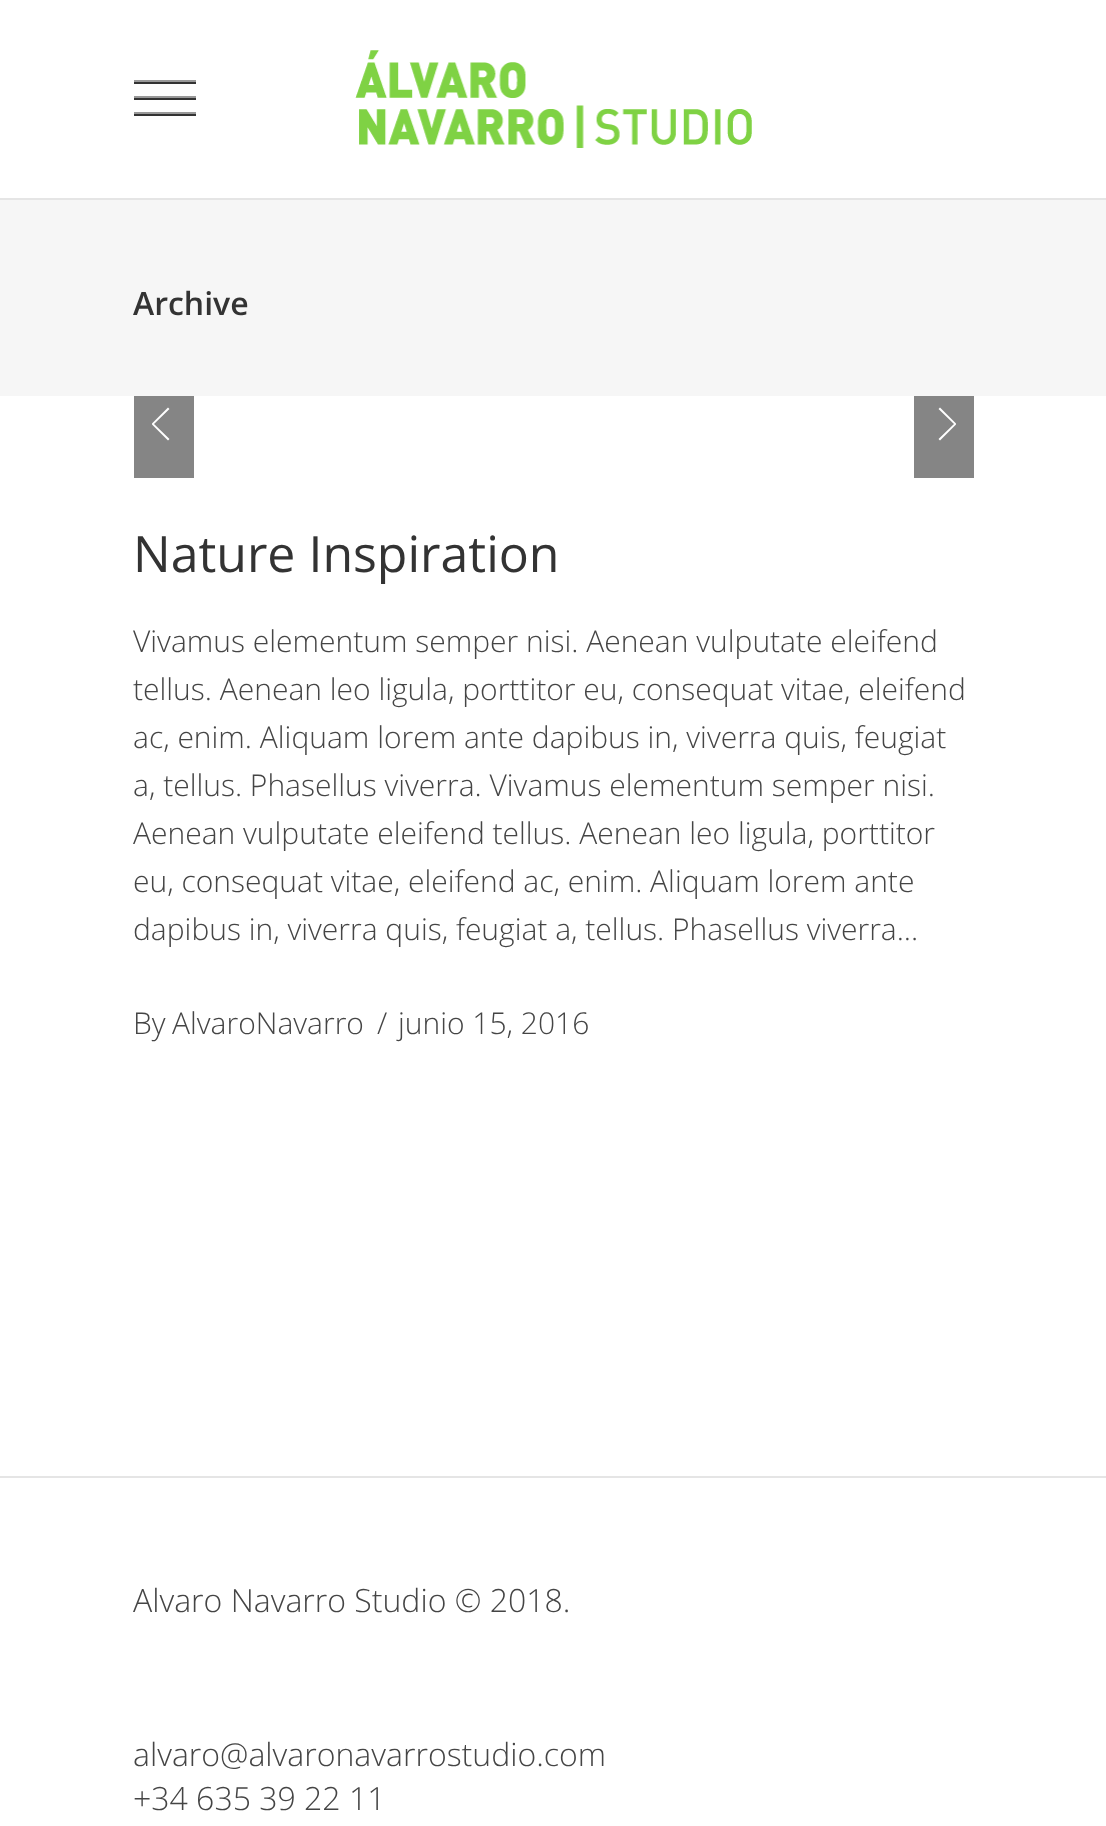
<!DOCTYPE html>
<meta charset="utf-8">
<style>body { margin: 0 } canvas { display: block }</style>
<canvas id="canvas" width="1106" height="1826"></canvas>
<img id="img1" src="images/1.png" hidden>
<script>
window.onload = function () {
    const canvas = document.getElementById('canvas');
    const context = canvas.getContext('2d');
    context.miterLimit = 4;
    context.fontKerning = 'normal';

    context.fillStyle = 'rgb(255, 255, 255)';
    context.fillRect(0, 0, 1106, 1826);
    context.fillStyle = 'rgb(229, 229, 229)';
    context.fillRect(0, 198, 1106, 2);
    context.fillStyle = 'rgb(51, 51, 51)';
    context.fillRect(134, 82, 62, 2);
    context.fillStyle = 'rgb(153, 153, 153)';
    context.fillRect(134, 80, 62, 2);
    context.fillStyle = 'rgb(51, 51, 51)';
    context.fillRect(134, 98, 62, 2);
    context.fillStyle = 'rgb(153, 153, 153)';
    context.fillRect(134, 96, 62, 2);
    context.fillStyle = 'rgb(51, 51, 51)';
    context.fillRect(134, 114, 62, 2);
    context.fillStyle = 'rgb(153, 153, 153)';
    context.fillRect(134, 112, 62, 2);
    context.drawImage(document.getElementById('img1'), 355, 50, 397, 98);
    context.fillStyle = 'rgb(246, 246, 246)';
    context.fillRect(0, 200, 1106, 196);
    context.fillStyle = 'rgb(133, 133, 133)';
    context.fillRect(134, 396, 60, 82);
    context.fillStyle = 'rgb(255, 255, 255)';
    context.beginPath();
    context.moveTo(168, 407.5);
    context.lineTo(169.5, 409);
    context.lineTo(154, 424);
    context.lineTo(169.5, 439);
    context.lineTo(168, 440.5);
    context.lineTo(152, 424.5);
    context.lineTo(152, 423.5);
    context.closePath();
    context.fill();
    context.fillStyle = 'rgb(133, 133, 133)';
    context.fillRect(914, 396, 60, 82);
    context.fillStyle = 'rgb(255, 255, 255)';
    context.beginPath();
    context.moveTo(956, 423.5);
    context.lineTo(956, 424.5);
    context.lineTo(940, 440.5);
    context.lineTo(938.5, 439);
    context.lineTo(954, 424);
    context.lineTo(938.5, 409);
    context.lineTo(940, 407.5);
    context.closePath();
    context.fill();
    context.fillStyle = 'rgb(229, 229, 229)';
    context.fillRect(0, 1476, 1106, 2);
    context.font = '600 32px Open Sans';
    context.fillStyle = 'rgb(51, 51, 51)';
    context.fillText('Archive', 133, 315);
    context.font = '50px Open Sans';
    context.fillText('Nature Inspiration', 133, 572);
    context.font = '300 30px Open Sans';
    context.fillStyle = 'rgb(69, 69, 69)';
    context.fillText('Vivamus elementum semper nisi. Aenean vulputate eleifend', 133, 652);
    context.fillText('tellus. Aenean leo ligula, porttitor eu, consequat vitae, eleifend', 133, 700);
    context.fillText('ac, enim. Aliquam lorem ante dapibus in, viverra quis, feugiat', 133, 748);
    context.fillText('a, tellus. Phasellus viverra. Vivamus elementum semper nisi.', 133, 796);
    context.fillText('Aenean vulputate eleifend tellus. Aenean leo ligula, porttitor', 133, 844);
    context.fillText('eu, consequat vitae, eleifend ac, enim. Aliquam lorem ante', 133, 892);
    context.fillText('dapibus in, viverra quis, feugiat a, tellus. Phasellus viverra...', 133, 940);
    context.fillText('By', 133, 1034);
    context.fillText('AlvaroNavarro', 172, 1034);
    context.fillText('/', 377, 1034);
    context.fillText('junio 15, 2016', 398, 1034);
    context.font = '300 32px Open Sans';
    context.fillText('Alvaro Navarro Studio © 2018.', 133, 1612);
    context.fillText('alvaro@alvaronavarrostudio.com', 133, 1766);
    context.fillText('+34 635 39 22 11', 133, 1810);
};
</script>
